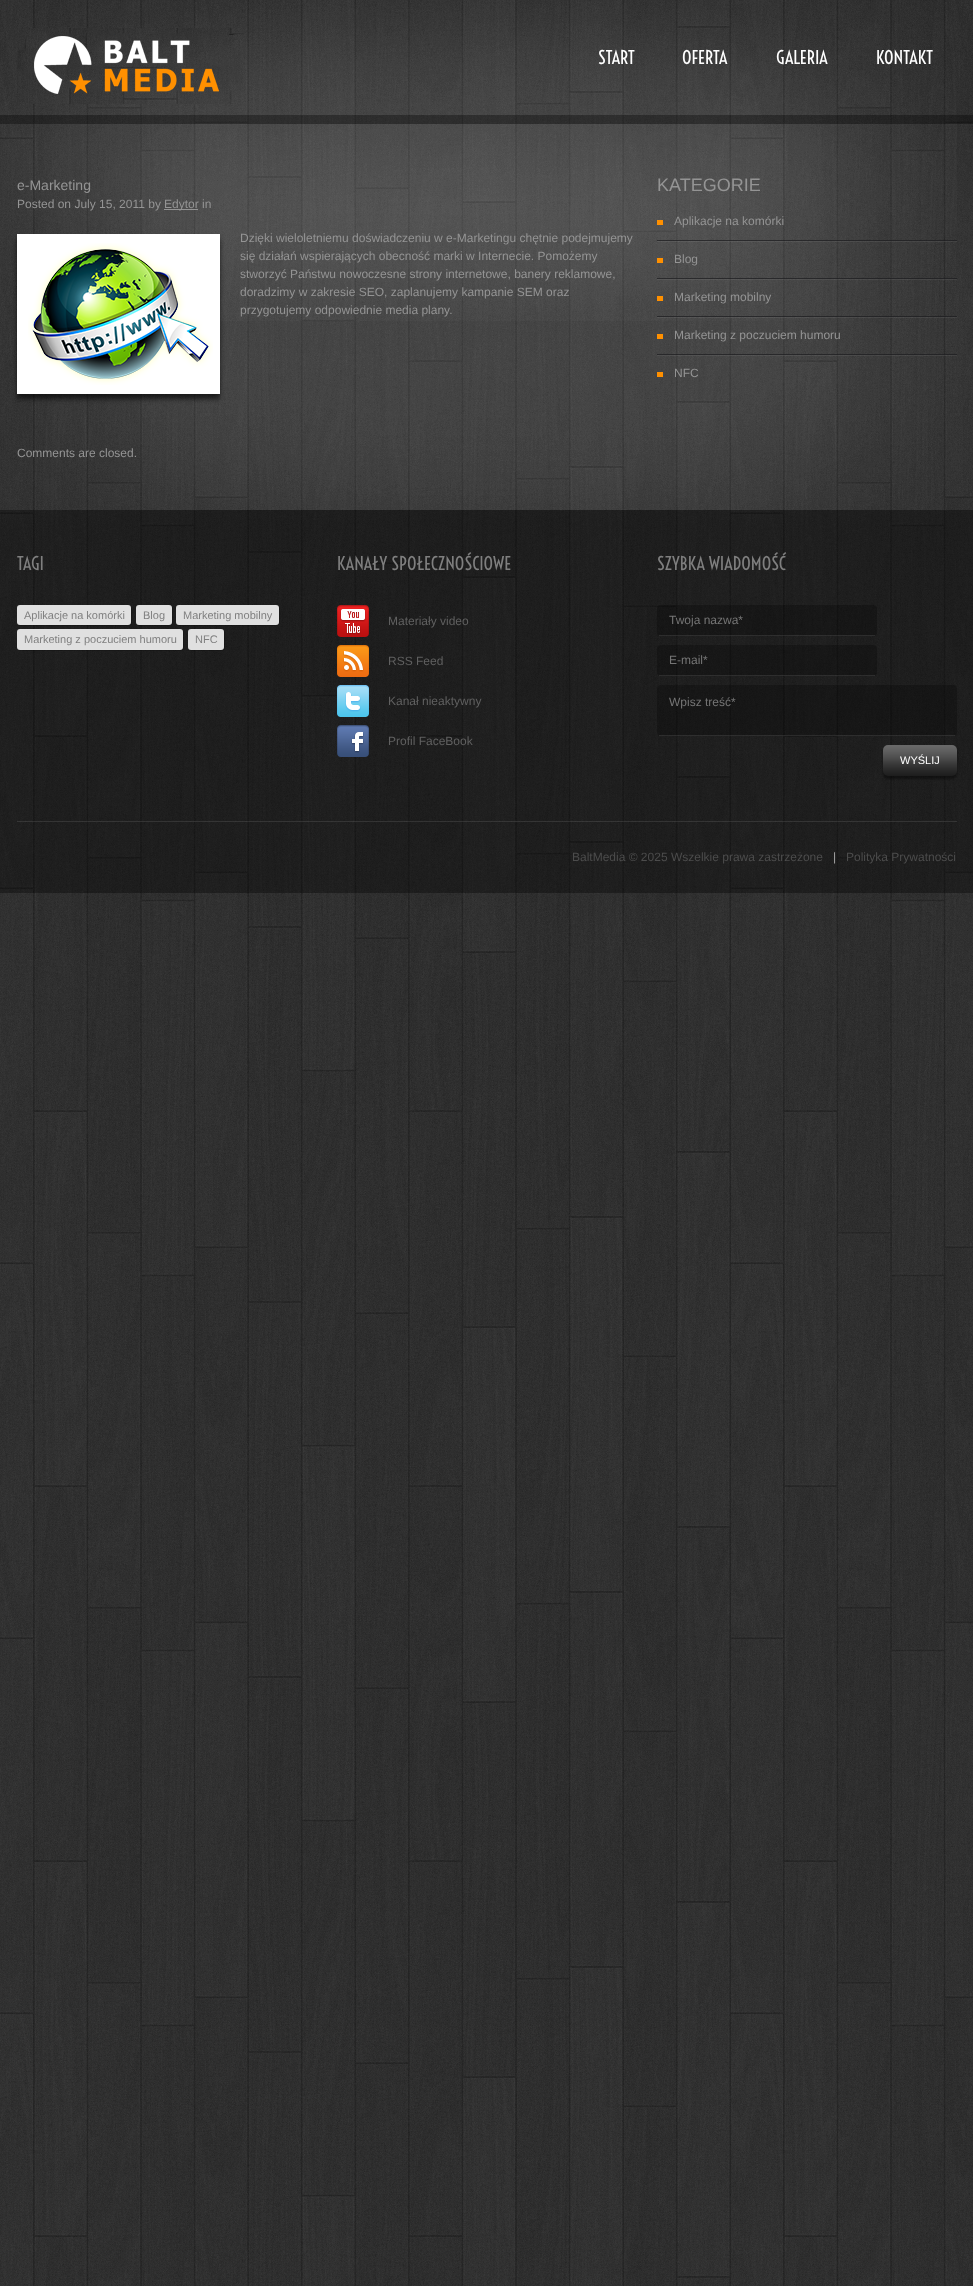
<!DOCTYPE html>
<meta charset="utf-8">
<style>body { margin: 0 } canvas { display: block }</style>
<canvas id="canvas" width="973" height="2286"></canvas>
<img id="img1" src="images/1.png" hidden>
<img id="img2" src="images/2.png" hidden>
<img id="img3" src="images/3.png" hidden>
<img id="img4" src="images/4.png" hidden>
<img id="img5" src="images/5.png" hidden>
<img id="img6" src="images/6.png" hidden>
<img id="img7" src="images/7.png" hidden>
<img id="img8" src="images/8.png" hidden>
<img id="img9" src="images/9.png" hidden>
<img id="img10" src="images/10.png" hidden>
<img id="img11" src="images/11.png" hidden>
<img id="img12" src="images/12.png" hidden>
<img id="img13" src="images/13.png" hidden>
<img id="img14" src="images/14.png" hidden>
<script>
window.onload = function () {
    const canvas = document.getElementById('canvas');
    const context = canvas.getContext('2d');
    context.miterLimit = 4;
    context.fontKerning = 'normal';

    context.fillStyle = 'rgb(255, 255, 255)';
    context.fillRect(0, 0, 973, 2286);
    context.drawImage(document.getElementById('img1'), 0, 0, 973, 2286);
    context.drawImage(document.getElementById('img2'), 0, 0, 957, 321);
    context.fillStyle = 'rgba(0, 0, 0, 0.33)';
    context.fillRect(0, 115, 973, 9);
    context.drawImage(document.getElementById('img3'), 17, 28, 226, 76);
    context.drawImage(document.getElementById('img4'), 0, 124, 973, 386);
    context.fillStyle = 'rgb(148, 148, 148)';
    context.fillRect(164, 209, 34, 1);
    context.fillStyle = 'rgba(0, 0, 0, 0.6)';
    context.filter = 'blur(2.5px)';
    context.beginPath();
    context.rect(17, 239, 203, 160);
    context.fill();
    context.filter = 'none';
    context.fillStyle = 'rgb(255, 255, 255)';
    context.fillRect(17, 234, 203, 160);
    context.drawImage(document.getElementById('img5'), 28, 243, 185, 142);
    context.fillStyle = 'rgb(255, 144, 0)';
    context.fillRect(657, 220, 6, 5);
    context.drawImage(document.getElementById('img6'), 657, 240, 300, 2);
    context.fillRect(657, 258, 6, 5);
    context.drawImage(document.getElementById('img7'), 657, 278, 300, 2);
    context.fillRect(657, 296, 6, 5);
    context.drawImage(document.getElementById('img8'), 657, 316, 300, 2);
    context.fillRect(657, 334, 6, 5);
    context.drawImage(document.getElementById('img9'), 657, 354, 300, 2);
    context.fillRect(657, 372, 6, 5);
    context.fillStyle = 'rgba(0, 0, 0, 0.35)';
    context.fillRect(0, 510, 973, 383);
    context.fillStyle = 'rgba(0, 0, 0, 0.2)';
    context.beginPath();
    context.moveTo(18, 625);
    context.lineTo(21, 626);
    context.lineTo(129, 626);
    context.bezierCurveTo(132, 626, 132, 623, 132, 621);
    context.bezierCurveTo(132, 618, 133, 608, 131, 606);
    context.lineTo(131, 608);
    context.lineTo(131, 622);
    context.bezierCurveTo(131, 624, 130, 625, 128, 625);
    context.lineTo(20, 625);
    context.closePath();
    context.fill();
    context.fillStyle = 'rgb(224, 224, 224)';
    context.beginPath();
    context.roundRect(17, 605, 114, 20, 3);
    context.fill();
    context.fillStyle = 'rgba(0, 0, 0, 0.2)';
    context.beginPath();
    context.moveTo(137.5, 624.5);
    context.bezierCurveTo(138, 625.5, 139, 626, 140, 626);
    context.lineTo(170, 626);
    context.bezierCurveTo(171.5, 626, 173, 624.5, 173, 623);
    context.lineTo(173, 609);
    context.bezierCurveTo(173, 608, 172.5, 607, 171.5, 606.5);
    context.lineTo(172, 608);
    context.lineTo(172, 622);
    context.bezierCurveTo(172, 623.5, 170.5, 625, 169, 625);
    context.lineTo(139, 625);
    context.closePath();
    context.fill();
    context.fillStyle = 'rgb(224, 224, 224)';
    context.beginPath();
    context.roundRect(136, 605, 36, 20, 3);
    context.fill();
    context.fillStyle = 'rgba(0, 0, 0, 0.2)';
    context.beginPath();
    context.moveTo(177, 625);
    context.lineTo(179, 626);
    context.lineTo(277, 626);
    context.bezierCurveTo(280, 626, 280, 623, 280, 621);
    context.bezierCurveTo(280, 618, 281, 608, 279, 606);
    context.lineTo(279, 608);
    context.lineTo(279, 622);
    context.bezierCurveTo(279, 624, 278, 625, 276, 625);
    context.lineTo(179, 625);
    context.closePath();
    context.fill();
    context.fillStyle = 'rgb(224, 224, 224)';
    context.beginPath();
    context.roundRect(176, 605, 103, 20, 3);
    context.fill();
    context.fillStyle = 'rgba(0, 0, 0, 0.2)';
    context.beginPath();
    context.moveTo(18, 650);
    context.bezierCurveTo(19, 650, 20, 651, 21, 651);
    context.lineTo(181, 651);
    context.bezierCurveTo(183, 651, 184, 650, 184, 648);
    context.lineTo(184, 633);
    context.bezierCurveTo(184, 632, 183, 631, 183, 630);
    context.lineTo(183, 632);
    context.lineTo(183, 647);
    context.bezierCurveTo(183, 649, 182, 650, 180, 650);
    context.lineTo(20, 650);
    context.closePath();
    context.fill();
    context.fillStyle = 'rgb(224, 224, 224)';
    context.beginPath();
    context.roundRect(17, 629, 166, 21, 3);
    context.fill();
    context.fillStyle = 'rgba(0, 0, 0, 0.2)';
    context.beginPath();
    context.moveTo(189.5, 649.5);
    context.bezierCurveTo(190, 650.5, 191, 651, 192, 651);
    context.lineTo(222, 651);
    context.bezierCurveTo(223.5, 651, 225, 649.5, 225, 648);
    context.lineTo(225, 633);
    context.bezierCurveTo(225, 632, 224.5, 631, 223.5, 630.5);
    context.lineTo(224, 632);
    context.lineTo(224, 647);
    context.bezierCurveTo(224, 648.5, 222.5, 650, 221, 650);
    context.lineTo(191, 650);
    context.closePath();
    context.fill();
    context.fillStyle = 'rgb(224, 224, 224)';
    context.beginPath();
    context.roundRect(188, 629, 36, 21, 3);
    context.fill();
    context.drawImage(document.getElementById('img10'), 337, 605, 32, 32);
    context.drawImage(document.getElementById('img11'), 337, 645, 32, 32);
    context.drawImage(document.getElementById('img12'), 337, 685, 32, 32);
    context.drawImage(document.getElementById('img13'), 337, 725, 32, 32);
    context.fillStyle = 'rgba(0, 0, 0, 0.25)';
    context.beginPath();
    context.roundRect(657, 605, 220, 31, 4);
    context.fill();
    context.fillStyle = 'rgba(255, 255, 255, 0.1)';
    context.fillRect(659, 635, 216, 1);
    context.fillStyle = 'rgba(0, 0, 0, 0.25)';
    context.beginPath();
    context.roundRect(657, 645, 220, 31, 4);
    context.fill();
    context.fillStyle = 'rgba(255, 255, 255, 0.1)';
    context.fillRect(659, 675, 216, 1);
    context.fillStyle = 'rgba(0, 0, 0, 0.25)';
    context.beginPath();
    context.roundRect(657, 685, 300, 51, 4);
    context.fill();
    context.fillStyle = 'rgba(255, 255, 255, 0.1)';
    context.fillRect(659, 735, 296, 1);
    context.fillStyle = 'rgba(0, 0, 0, 0.4)';
    context.filter = 'blur(1px)';
    context.beginPath();
    context.roundRect(883, 748, 74, 31, 5);
    context.fill();
    context.filter = 'none';
    context.drawImage(document.getElementById('img14'), 883, 745, 74, 31);
    context.fillStyle = 'rgba(255, 255, 255, 0.1)';
    context.fillRect(17, 821, 940, 1);
    context.font = '18px Voltaire';
    context.fillStyle = 'rgb(255, 255, 255)';
    context.fillText('START', 598, 64);
    context.fillText('OFERTA', 682, 64);
    context.fillText('GALERIA', 776, 64);
    context.fillText('KONTAKT', 876, 64);
    context.font = '14px Liberation Sans';
    context.fillStyle = 'rgb(148, 148, 148)';
    context.fillText('e-Marketing', 17, 190);
    context.font = '12px Liberation Sans';
    context.fillText('Posted on July 15, 2011 by', 17, 208);
    context.fillText('Edytor in', 164, 208);
    context.fillText('Dzięki wieloletniemu doświadczeniu w e-Marketingu chętnie podejmujemy', 240, 242);
    context.fillText('się działań wspierających obecność marki w Internecie. Pomożemy', 240, 260);
    context.fillText('stworzyć Państwu nowoczesne strony internetowe, banery reklamowe,', 240, 278);
    context.fillText('doradzimy w zakresie SEO, zaplanujemy kampanie SEM oraz', 240, 296);
    context.fillText('przygotujemy odpowiednie media plany.', 240, 314);
    context.fillText('Comments are closed.', 17, 457);
    context.font = '18px Liberation Sans';
    context.fillText('KATEGORIE', 657, 191);
    context.font = '12px Liberation Sans';
    context.fillText('Aplikacje na komórki', 674, 225);
    context.fillText('Blog', 674, 263);
    context.fillText('Marketing mobilny', 674, 301);
    context.fillText('Marketing z poczuciem humoru', 674, 339);
    context.fillText('NFC', 674, 377);
    context.font = '18px Voltaire';
    context.fillStyle = 'rgb(127, 127, 127)';
    context.fillText('TAGI', 17, 570);
    context.font = '11px Liberation Sans';
    context.fillText('Aplikacje na komórki', 24, 619);
    context.fillText('Blog', 143, 619);
    context.fillText('Marketing mobilny', 183, 619);
    context.fillText('Marketing z poczuciem humoru', 24, 643);
    context.fillText('NFC', 195, 643);
    context.font = '18px Voltaire';
    context.fillText('KANAŁY SPOŁECZNOŚCIOWE', 337, 570);
    context.font = '12px Liberation Sans';
    context.fillStyle = 'rgb(96, 96, 96)';
    context.fillText('Materiały video', 388, 625);
    context.fillText('RSS Feed', 388, 665);
    context.fillText('Kanał nieaktywny', 388, 705);
    context.fillText('Profil FaceBook', 388, 745);
    context.font = '18px Voltaire';
    context.fillStyle = 'rgb(127, 127, 127)';
    context.fillText('SZYBKA WIADOMOŚĆ', 657, 570);
    context.font = '12px Liberation Sans';
    context.fillStyle = 'rgb(117, 117, 117)';
    context.fillText('Twoja nazwa*', 669, 624);
    context.fillText('E-mail*', 669, 664);
    context.fillText('Wpisz treść*', 669, 706);
    context.font = '11px Liberation Sans';
    context.fillStyle = 'rgb(255, 255, 255)';
    context.fillText('WYŚLIJ', 900, 764);
    context.font = '12px Liberation Sans';
    context.fillStyle = 'rgb(76, 76, 76)';
    context.fillText('BaltMedia © 2025 Wszelkie prawa zastrzeżone', 572, 861);
    context.fillStyle = 'rgb(164, 164, 164)';
    context.fillText('|', 833, 861);
    context.fillStyle = 'rgb(76, 76, 76)';
    context.fillText('Polityka Prywatności', 846, 861);
};
</script>
